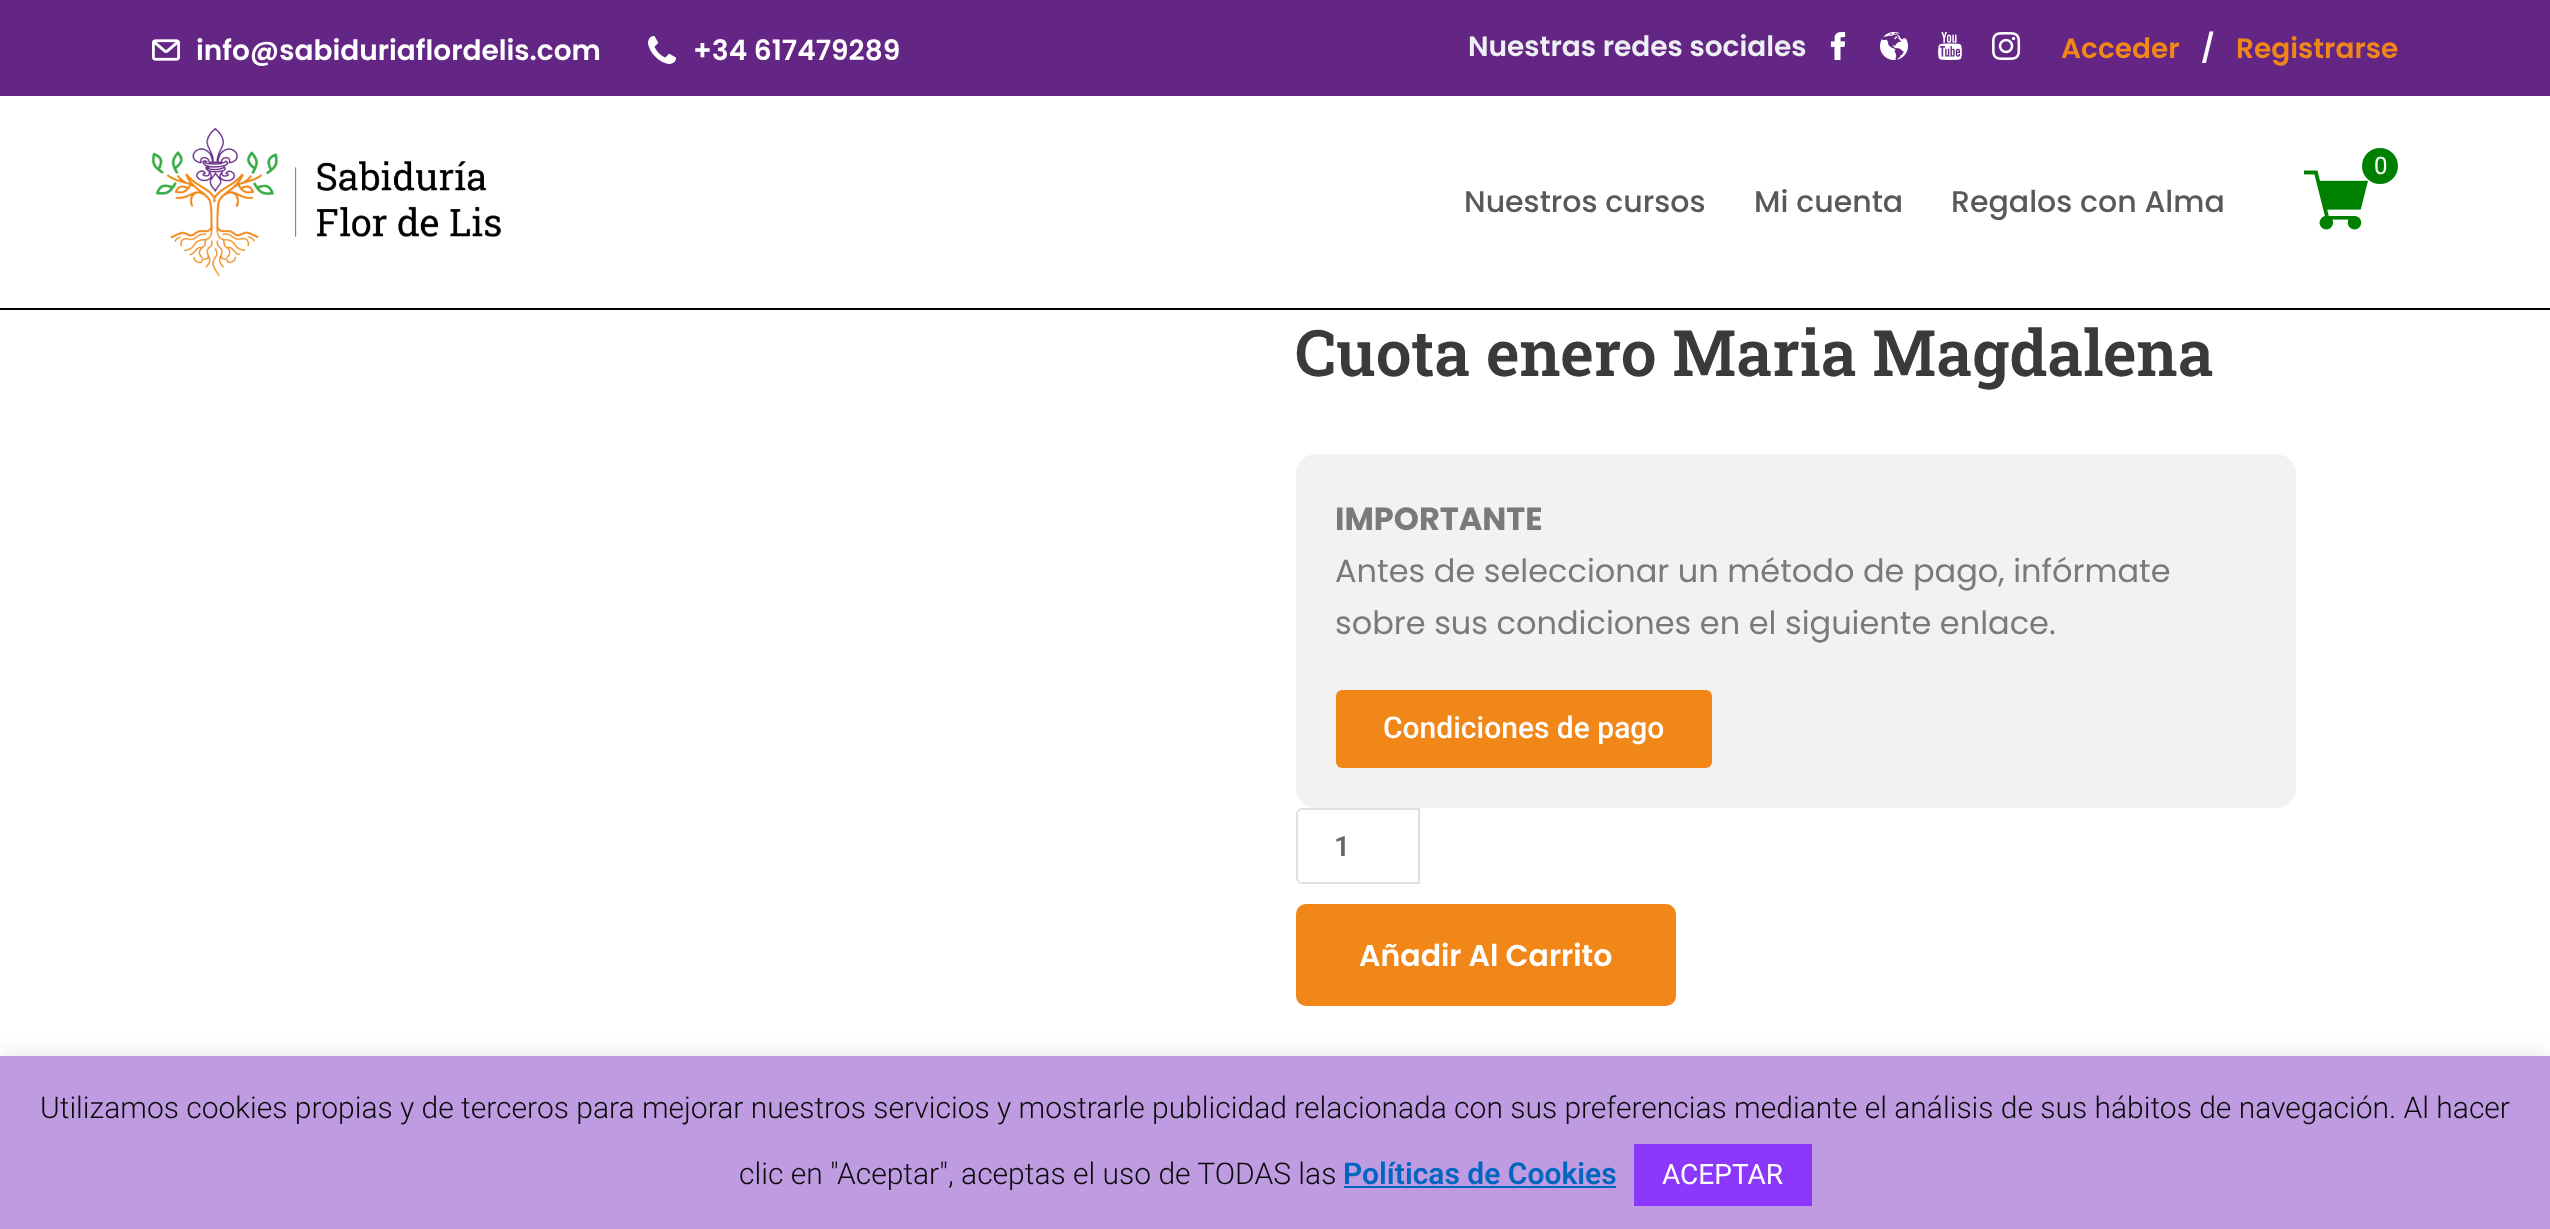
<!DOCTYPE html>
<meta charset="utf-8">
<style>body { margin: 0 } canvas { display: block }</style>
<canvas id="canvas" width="2550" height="1229"></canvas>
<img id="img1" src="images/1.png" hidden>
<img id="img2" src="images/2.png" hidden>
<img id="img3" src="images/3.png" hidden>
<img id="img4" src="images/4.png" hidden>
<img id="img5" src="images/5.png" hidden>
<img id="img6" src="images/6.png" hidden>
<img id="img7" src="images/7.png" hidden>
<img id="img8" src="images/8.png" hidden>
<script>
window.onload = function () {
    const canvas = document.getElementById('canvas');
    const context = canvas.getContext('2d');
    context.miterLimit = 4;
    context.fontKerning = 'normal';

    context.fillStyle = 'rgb(255, 255, 255)';
    context.fillRect(0, 0, 2550, 1229);
    context.fillStyle = 'rgb(0, 0, 0)';
    context.fillRect(0, 308, 2550, 2);
    context.fillStyle = 'rgb(100, 38, 132)';
    context.fillRect(0, 0, 2550, 96);
    context.drawImage(document.getElementById('img1'), 152, 39, 28, 22);
    context.drawImage(document.getElementById('img2'), 648, 36, 28, 28);
    context.drawImage(document.getElementById('img3'), 1830, 32, 16, 28);
    context.drawImage(document.getElementById('img4'), 1880, 32, 28, 28);
    context.drawImage(document.getElementById('img5'), 1938, 32, 24, 28);
    context.drawImage(document.getElementById('img6'), 1992, 32, 29, 28);
    context.drawImage(document.getElementById('img7'), 152, 128, 349, 148);
    context.drawImage(document.getElementById('img8'), 2304, 170, 64, 60);
    context.fillStyle = 'rgb(0, 128, 0)';
    context.beginPath();
    context.arc(2380, 166, 18, 0, 2 * Math.PI);
    context.fill();
    context.fillStyle = 'rgb(242, 242, 242)';
    context.beginPath();
    context.roundRect(1296, 454, 1000, 354, 20);
    context.fill();
    context.fillStyle = 'rgb(241, 135, 25)';
    context.beginPath();
    context.roundRect(1336, 690, 376, 78, 6);
    context.fill();
    context.beginPath();
    context.roundRect(1297, 809, 122, 74, [5, 0, 0, 5]);
    context.strokeStyle = 'rgb(224, 224, 224)';
    context.lineWidth = 2;
    context.stroke();
    context.beginPath();
    context.roundRect(1298, 906, 376, 98, 8);
    context.fill();
    context.strokeStyle = 'rgb(241, 135, 25)';
    context.lineWidth = 4;
    context.stroke();
    context.fillStyle = 'rgba(172, 171, 171, 0.3)';
    context.filter = 'blur(10px)';
    context.beginPath();
    context.rect(0, 1054, 2550, 174);
    context.fill();
    context.filter = 'none';
    context.fillStyle = 'rgb(191, 156, 226)';
    context.fillRect(0, 1056, 2550, 173);
    context.fillStyle = 'rgb(1, 102, 191)';
    context.fillRect(1344, 1186, 272, 2);
    context.fillStyle = 'rgb(140, 55, 252)';
    context.fillRect(1634, 1144, 178, 62);
    context.font = '600 28px Poppins';
    context.fillStyle = 'rgb(255, 255, 255)';
    context.fillText('info@sabiduriaflordelis.com', 196, 60);
    context.fillText('+34 617479289', 693, 60);
    context.fillStyle = 'rgb(237, 240, 242)';
    context.fillText('Nuestras redes sociales', 1468, 56);
    context.fillStyle = 'rgb(241, 135, 25)';
    context.fillText('Acceder', 2061, 58);
    context.fillStyle = 'rgb(255, 255, 255)';
    context.fillText('/', 2201, 58);
    context.fillStyle = 'rgb(241, 135, 25)';
    context.fillText('Registrarse', 2236, 58);
    context.font = '24px Roboto';
    context.fillStyle = 'rgb(255, 255, 255)';
    context.fillText('0', 2374, 174);
    context.font = '500 30px Poppins';
    context.fillStyle = 'rgb(89, 89, 89)';
    context.fillText('Nuestros cursos', 1464, 212);
    context.fillText('Mi cuenta', 1754, 212);
    context.fillText('Regalos con Alma', 1951, 212);
    context.font = '600 64px Roboto Slab';
    context.fillStyle = 'rgb(58, 58, 58)';
    context.fillText('Cuota enero Maria Magdalena', 1295, 376);
    context.font = 'bold 32px Poppins';
    context.fillStyle = 'rgb(122, 122, 122)';
    context.fillText('IMPORTANTE', 1335, 530);
    context.font = '32px Poppins';
    context.fillText('Antes de seleccionar un método de pago, infórmate', 1335, 582);
    context.fillText('sobre sus condiciones en el siguiente enlace.', 1335, 634);
    context.font = '500 30px Roboto';
    context.fillStyle = 'rgb(255, 255, 255)';
    context.fillText('Condiciones de pago', 1383, 738);
    context.font = '600 28px Roboto';
    context.fillStyle = 'rgb(102, 102, 102)';
    context.fillText('1', 1334, 856);
    context.font = '600 30px Poppins';
    context.fillStyle = 'rgb(255, 255, 255)';
    context.fillText('Añadir Al Carrito', 1359, 966);
    context.font = '300 30px Roboto';
    context.fillStyle = 'rgb(10, 10, 10)';
    context.fillText('Utilizamos cookies propias y de terceros para mejorar nuestros servicios y mostrarle publicidad relacionada con sus preferencias mediante el análisis de sus hábitos de navegación. Al hacer', 40, 1118);
    context.fillText('clic en "Aceptar", aceptas el uso de TODAS las', 739, 1184);
    context.font = '600 30px Roboto';
    context.fillStyle = 'rgb(1, 102, 191)';
    context.fillText('Políticas de Cookies', 1343, 1184);
    context.font = '28px Roboto';
    context.fillStyle = 'rgb(255, 255, 255)';
    context.fillText('ACEPTAR', 1662, 1184);
};
</script>
